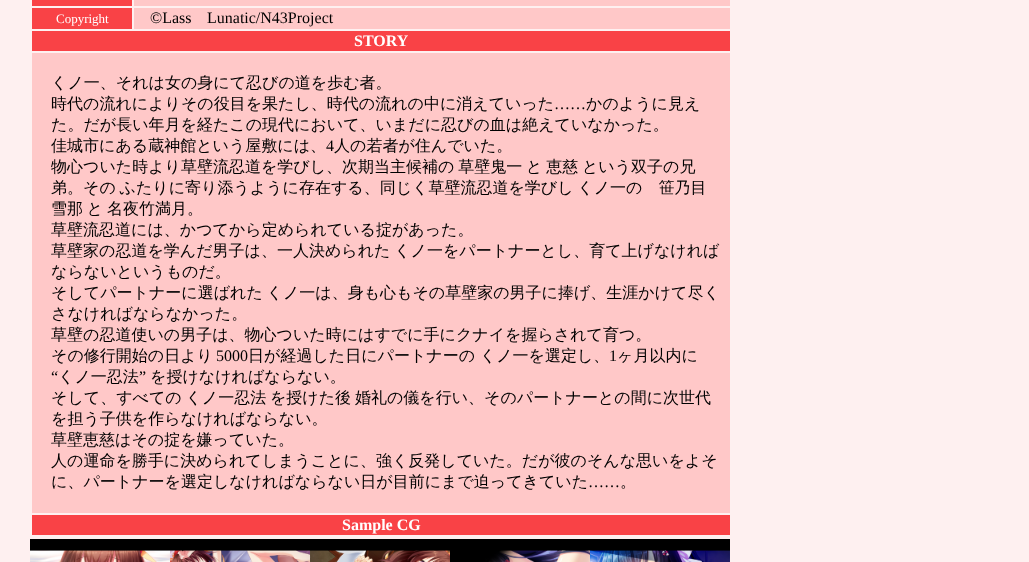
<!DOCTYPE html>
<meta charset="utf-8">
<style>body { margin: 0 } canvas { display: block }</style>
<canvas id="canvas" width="1029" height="562"></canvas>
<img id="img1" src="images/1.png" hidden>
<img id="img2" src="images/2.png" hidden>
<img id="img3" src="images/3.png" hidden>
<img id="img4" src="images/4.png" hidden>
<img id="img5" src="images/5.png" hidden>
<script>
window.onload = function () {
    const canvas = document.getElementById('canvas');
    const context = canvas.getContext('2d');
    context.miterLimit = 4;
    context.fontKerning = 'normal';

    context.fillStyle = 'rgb(254, 240, 240)';
    context.fillRect(0, 0, 1029, 562);
    context.fillStyle = 'rgb(249, 66, 70)';
    context.fillRect(32, 0, 100, 6);
    context.fillStyle = 'rgb(255, 200, 200)';
    context.fillRect(134, 0, 596, 6);
    context.fillStyle = 'rgb(249, 66, 70)';
    context.fillRect(32, 8, 100, 21);
    context.fillStyle = 'rgb(255, 200, 200)';
    context.fillRect(134, 8, 596, 21);
    context.fillStyle = 'rgb(249, 66, 70)';
    context.fillRect(32, 31, 698, 20);
    context.fillStyle = 'rgb(255, 200, 200)';
    context.fillRect(32, 53, 698, 460);
    context.fillStyle = 'rgb(249, 66, 70)';
    context.fillRect(32, 515, 698, 20);
    context.drawImage(document.getElementById('img1'), 30, 539, 140, 23);
    context.drawImage(document.getElementById('img2'), 170, 539, 140, 23);
    context.drawImage(document.getElementById('img3'), 310, 539, 140, 23);
    context.drawImage(document.getElementById('img4'), 450, 539, 140, 23);
    context.drawImage(document.getElementById('img5'), 590, 539, 140, 23);
    context.font = '13px Liberation Serif';
    context.fillStyle = 'rgb(255, 255, 255)';
    context.fillText('Copyright', 56, 23);
    context.font = '16px Liberation Serif';
    context.fillStyle = 'rgb(0, 0, 0)';
    context.fillText('©Lass', 150, 23);
    context.fillText('Lunatic/N43Project', 207, 23);
    context.font = 'bold 16px Liberation Serif';
    context.fillStyle = 'rgb(255, 255, 255)';
    context.fillText('STORY', 354, 46);
    context.font = '500 16px WenQuanYi Zen Hei';
    context.fillStyle = 'rgb(0, 0, 0)';
    context.fillText('くノ一、それは女の身にて忍びの道を歩む者。', 51, 88);
    context.fillText('時代の流れによりその役目を果たし、時代の流れの中に消えていった', 51, 109);
    context.font = '16px Liberation Serif';
    context.fillText('……', 554, 109);
    context.font = '500 16px WenQuanYi Zen Hei';
    context.fillText('かのように見え', 586, 109);
    context.fillText('た。だが長い年月を経たこの現代において、いまだに忍びの血は絶えていなかった。', 51, 130);
    context.fillText('佳城市にある蔵神館という屋敷には、', 51, 151);
    context.font = '16px Liberation Serif';
    context.fillText('4', 326, 151);
    context.font = '500 16px WenQuanYi Zen Hei';
    context.fillText('人の若者が住んでいた。', 334, 151);
    context.wordSpacing = '-1px';
    context.fillText('物心ついた時より草壁流忍道を学びし、次期当主候補の 草壁鬼一 と 恵慈 という双子の兄', 51, 172);
    context.fillText('弟。その ふたりに寄り添うように存在する、同じく草壁流忍道を学びし くノ一の　笹乃目', 51, 193);
    context.fillText('雪那 と 名夜竹満月。', 51, 214);
    context.wordSpacing = '0px';
    context.fillText('草壁流忍道には、かつてから定められている掟があった。', 51, 235);
    context.wordSpacing = '-1px';
    context.fillText('草壁家の忍道を学んだ男子は、一人決められた くノ一をパートナーとし、育て上げなければ', 51, 256);
    context.wordSpacing = '0px';
    context.fillText('ならないというものだ。', 51, 277);
    context.wordSpacing = '-1px';
    context.fillText('そしてパートナーに選ばれた くノ一は、身も心もその草壁家の男子に捧げ、生涯かけて尽く', 51, 298);
    context.wordSpacing = '0px';
    context.fillText('さなければならなかった。', 51, 319);
    context.fillText('草壁の忍道使いの男子は、物心ついた時にはすでに手にクナイを握らされて育つ。', 51, 340);
    context.fillText('その修行開始の日より', 51, 361);
    context.font = '16px Liberation Serif';
    context.fillText('5000', 216, 361);
    context.font = '500 16px WenQuanYi Zen Hei';
    context.fillText('日が経過した日にパートナーの くノ一を選定し、', 248, 361);
    context.font = '16px Liberation Serif';
    context.fillText('1', 609, 361);
    context.font = '500 16px WenQuanYi Zen Hei';
    context.fillText('ヶ月以内に', 617, 361);
    context.font = '16px Liberation Serif';
    context.fillText('“', 51, 382);
    context.font = '500 16px WenQuanYi Zen Hei';
    context.fillText('くノ一忍法', 58, 382);
    context.font = '16px Liberation Serif';
    context.fillText('”', 139, 382);
    context.font = '500 16px WenQuanYi Zen Hei';
    context.fillText('を授けなければならない。', 150, 382);
    context.wordSpacing = '-1px';
    context.fillText('そして、すべての くノ一忍法 を授けた後 婚礼の儀を行い、そのパートナーとの間に次世代', 51, 403);
    context.wordSpacing = '0px';
    context.fillText('を担う子供を作らなければならない。', 51, 424);
    context.fillText('草壁恵慈はその掟を嫌っていた。', 51, 445);
    context.fillText('人の運命を勝手に決められてしまうことに、強く反発していた。だが彼のそんな思いをよそ', 51, 466);
    context.fillText('に、パートナーを選定しなければならない日が目前にまで迫ってきていた', 51, 487);
    context.font = '16px Liberation Serif';
    context.fillText('……', 588, 487);
    context.font = '500 16px WenQuanYi Zen Hei';
    context.fillText('。', 620, 487);
    context.font = 'bold 16px Liberation Serif';
    context.fillStyle = 'rgb(255, 255, 255)';
    context.fillText('Sample CG', 342, 530);
};
</script>
